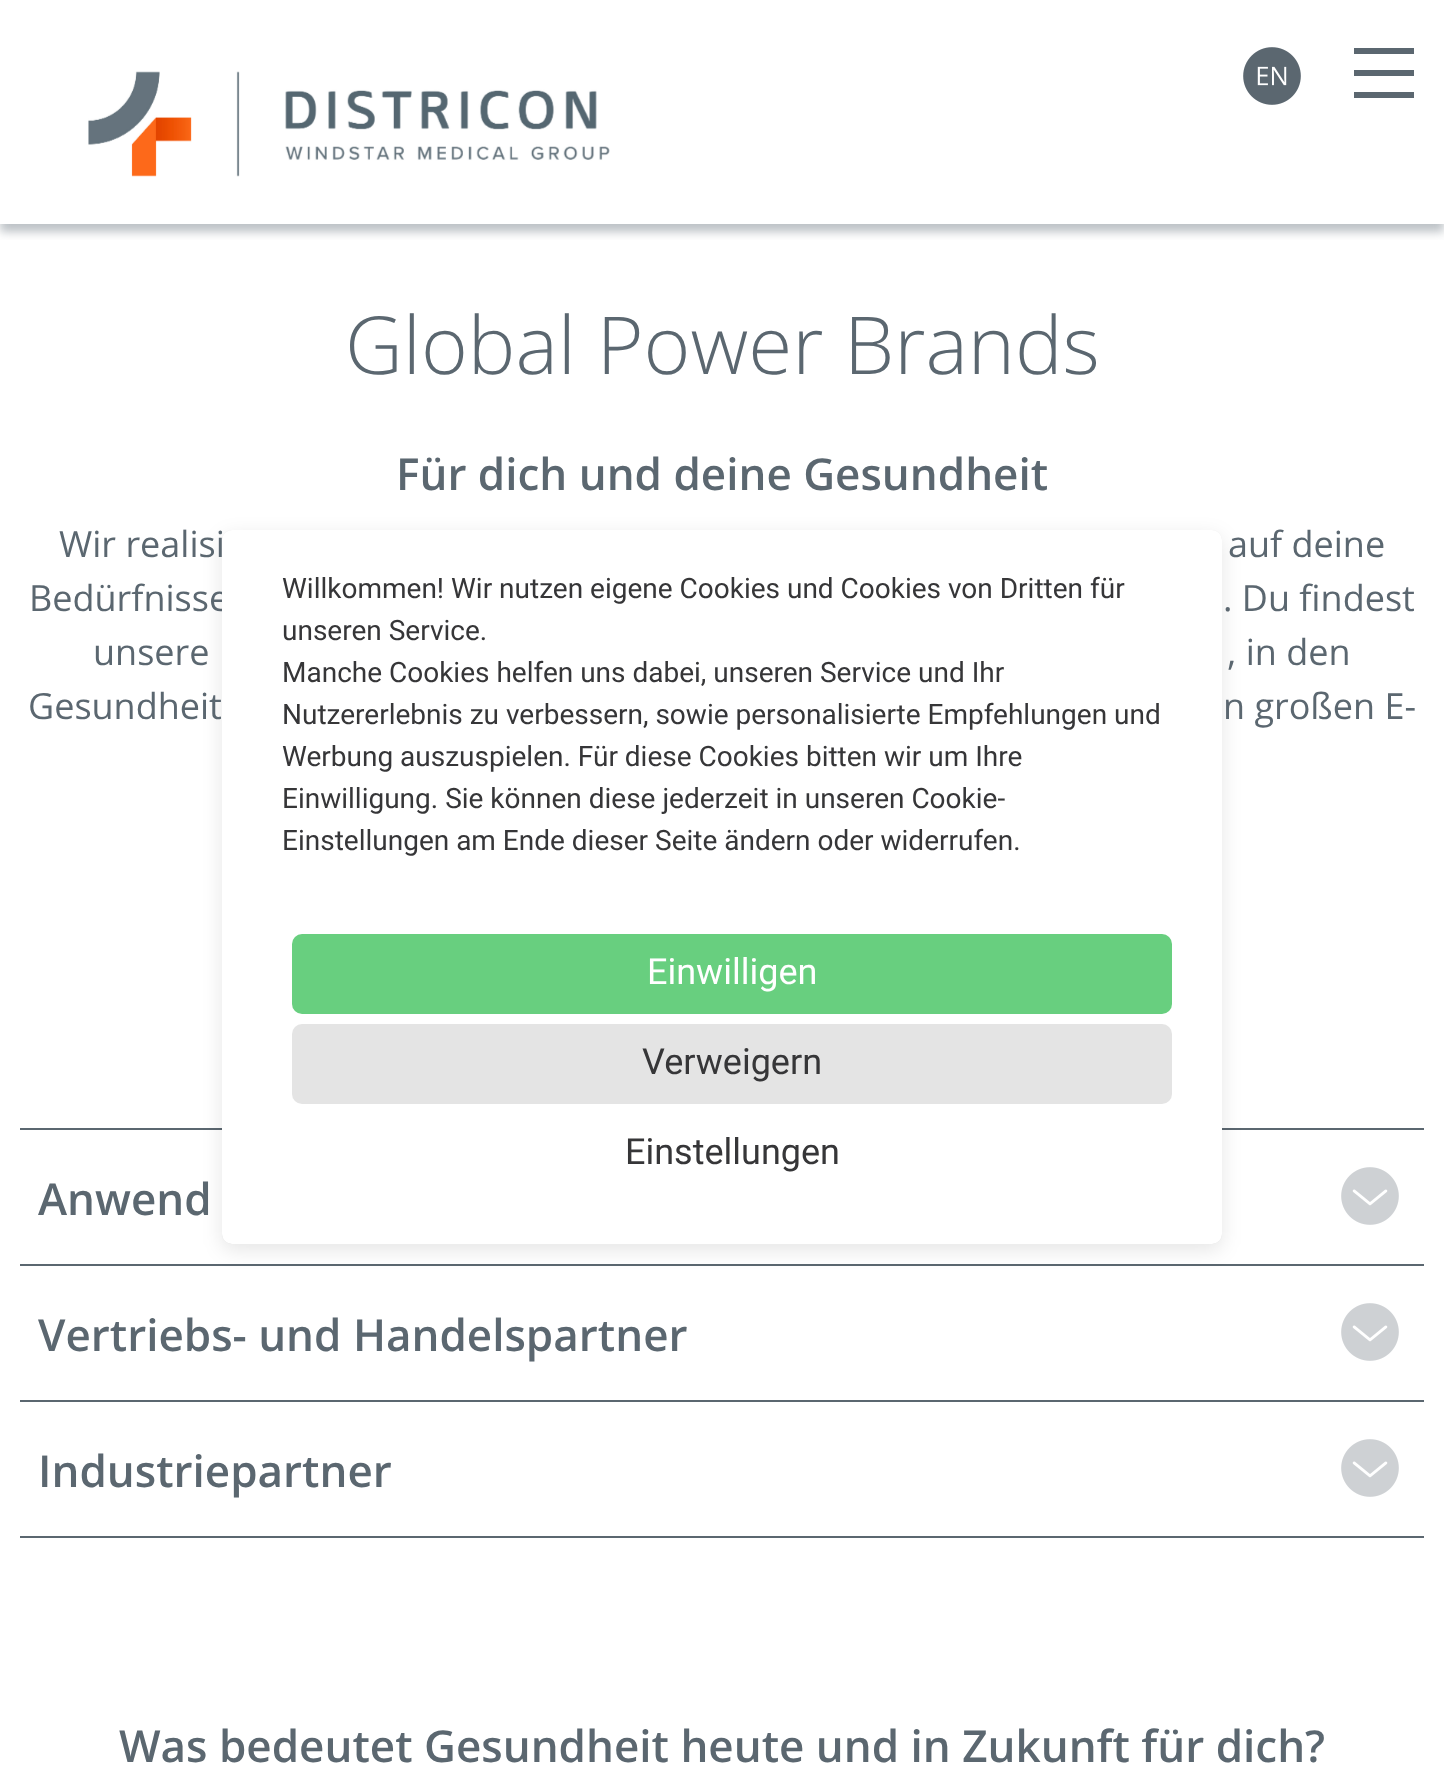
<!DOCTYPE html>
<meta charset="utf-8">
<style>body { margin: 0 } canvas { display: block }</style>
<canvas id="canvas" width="1444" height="1770"></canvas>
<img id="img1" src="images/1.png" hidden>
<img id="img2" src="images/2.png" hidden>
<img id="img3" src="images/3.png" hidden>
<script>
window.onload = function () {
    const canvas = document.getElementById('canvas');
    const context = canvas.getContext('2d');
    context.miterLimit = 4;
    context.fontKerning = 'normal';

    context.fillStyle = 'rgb(255, 255, 255)';
    context.fillRect(0, 0, 1444, 1770);
    context.save();
    context.beginPath();
    context.rect(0, 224, 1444, 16);
    context.clip();
    context.fillStyle = 'rgba(91, 103, 112, 0.4)';
    context.filter = 'blur(5px)';
    context.beginPath();
    context.rect(0, 8, 1444, 224);
    context.fill();
    context.filter = 'none';
    context.restore();
    context.drawImage(document.getElementById('img1'), 88, 71, 522, 106);
    context.drawImage(document.getElementById('img2'), 1243, 47, 58, 58);
    context.fillStyle = 'rgb(91, 103, 112)';
    context.fillRect(1354, 70, 60, 6);
    context.fillRect(1354, 48, 60, 6);
    context.fillRect(1354, 92, 60, 6);
    context.fillRect(20, 1128, 1404, 2);
    context.drawImage(document.getElementById('img3'), 1341, 1167, 58, 58);
    context.fillRect(20, 1264, 1404, 2);
    context.drawImage(document.getElementById('img3'), 1341, 1303, 58, 58);
    context.fillRect(20, 1400, 1404, 2);
    context.fillRect(20, 1536, 1404, 2);
    context.drawImage(document.getElementById('img3'), 1341, 1439, 58, 58);
    context.fillStyle = 'rgba(0, 0, 0, 0.1)';
    context.filter = 'blur(10px)';
    context.beginPath();
    context.roundRect(222, 536, 1000, 714, 10);
    context.fill();
    context.filter = 'none';
    context.save();
    context.beginPath();
    context.roundRect(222, 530, 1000, 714, 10);
    context.clip();
    context.fillStyle = 'rgba(0, 0, 0, 0.3)';
    context.filter = 'blur(36px)';
    context.beginPath();
    context.rect(222, 542, 1000, 714);
    context.fill();
    context.filter = 'none';
    context.restore();
    context.font = '300 80px Open Sans';
    context.fillStyle = 'rgb(91, 103, 112)';
    context.fillText('Global Power Brands', 345, 374);
    context.font = '600 44px Open Sans';
    context.fillText('Für dich und deine Gesundheit', 396, 490);
    context.font = '36px Open Sans';
    context.fillText('Wir realisi', 59, 557);
    context.fillText('auf deine', 1228, 557);
    context.fillText('Bedürfnisse', 29, 611);
    context.fillText('. Du findest', 1223, 611);
    context.fillText('unsere', 93, 665);
    context.fillText(', in den', 1227, 665);
    context.fillText('Gesundheit', 28, 719);
    context.fillText('n großen E-', 1223, 719);
    context.font = '600 44px Open Sans';
    context.fillText('Anwend', 38, 1215);
    context.fillText('Vertriebs- und Handelspartner', 38, 1351);
    context.fillText('Industriepartner', 38, 1487);
    context.fillText('Was bedeutet Gesundheit heute und in Zukunft für dich?', 119, 1762);
    context.fillStyle = 'rgb(255, 255, 255)';
    context.beginPath();
    context.roundRect(222, 530, 1000, 714, 10);
    context.fill();
    context.font = '28px Roboto';
    context.fillStyle = 'rgb(54, 54, 56)';
    context.fillText('Willkommen! Wir nutzen eigene Cookies und Cookies von Dritten für', 282, 598);
    context.fillText('unseren Service.', 282, 640);
    context.fillText('Manche Cookies helfen uns dabei, unseren Service und Ihr', 282, 682);
    context.fillText('Nutzererlebnis zu verbessern, sowie personalisierte Empfehlungen und', 282, 724);
    context.fillText('Werbung auszuspielen. Für diese Cookies bitten wir um Ihre', 282, 766);
    context.fillText('Einwilligung. Sie können diese jederzeit in unseren Cookie-', 282, 808);
    context.fillText('Einstellungen am Ende dieser Seite ändern oder widerrufen.', 282, 850);
    context.fillStyle = 'rgb(104, 207, 127)';
    context.beginPath();
    context.roundRect(292, 934, 880, 80, 10);
    context.fill();
    context.font = '36px Roboto';
    context.fillStyle = 'rgb(255, 255, 255)';
    context.fillText('Einwilligen', 647, 984);
    context.fillStyle = 'rgb(228, 228, 228)';
    context.beginPath();
    context.roundRect(292, 1024, 880, 80, 10);
    context.fill();
    context.fillStyle = 'rgb(54, 54, 56)';
    context.fillText('Verweigern', 642, 1074);
    context.fillText('Einstellungen', 625, 1164);
};
</script>
